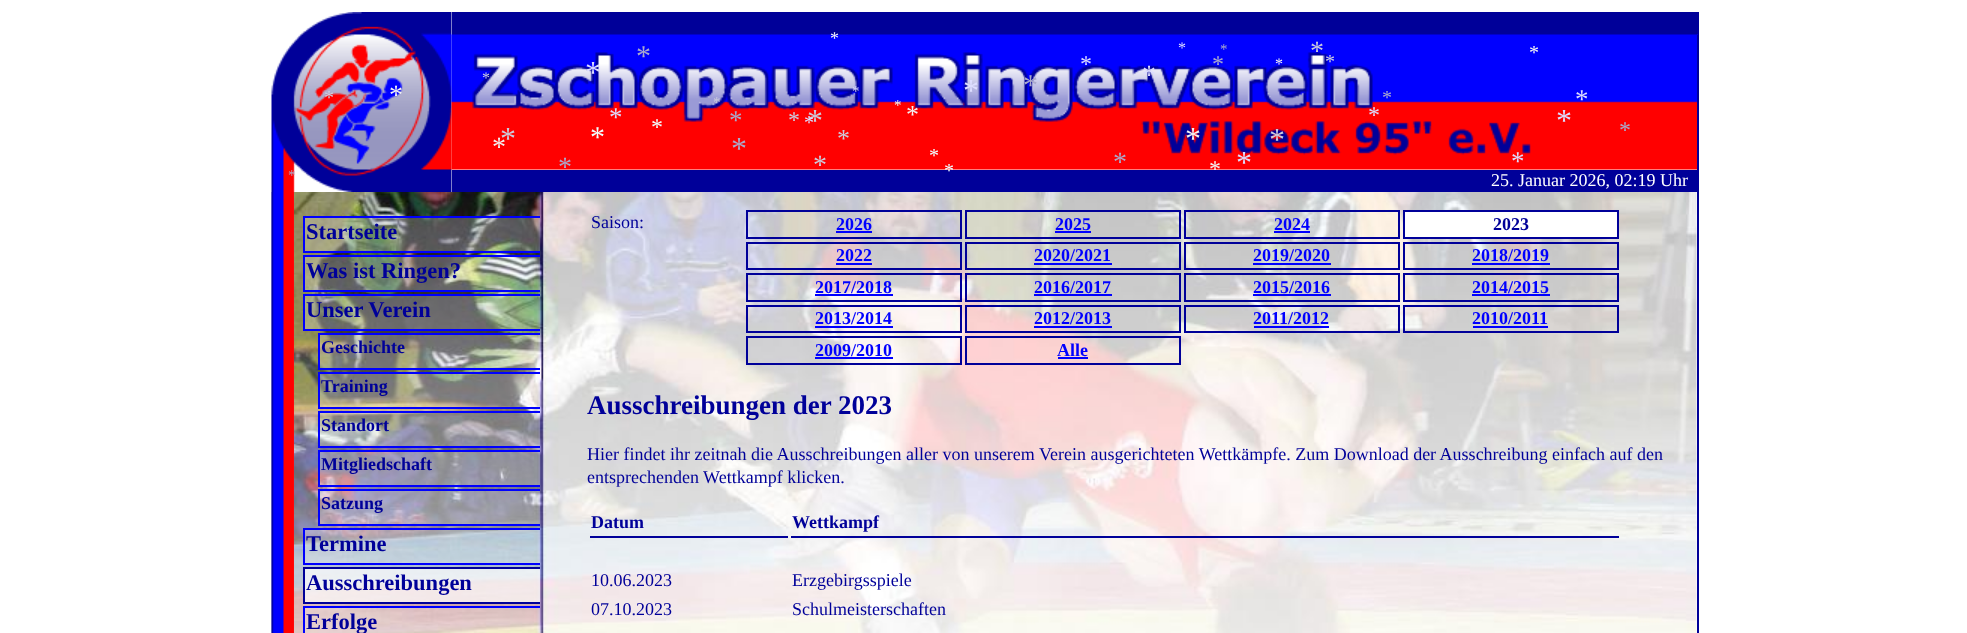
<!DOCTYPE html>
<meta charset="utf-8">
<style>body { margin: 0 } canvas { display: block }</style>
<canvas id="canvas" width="1967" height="633"></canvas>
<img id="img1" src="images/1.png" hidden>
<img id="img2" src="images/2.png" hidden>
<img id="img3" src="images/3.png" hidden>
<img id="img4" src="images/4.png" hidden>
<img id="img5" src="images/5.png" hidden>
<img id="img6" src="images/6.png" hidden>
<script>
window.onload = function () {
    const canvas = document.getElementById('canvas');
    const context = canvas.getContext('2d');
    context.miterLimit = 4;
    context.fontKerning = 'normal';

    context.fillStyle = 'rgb(255, 255, 255)';
    context.fillRect(0, 0, 1967, 633);
    context.drawImage(document.getElementById('img1'), 271, 12, 181, 180);
    context.fillStyle = 'rgb(0, 0, 153)';
    context.fillRect(452, 12, 1247, 23);
    context.drawImage(document.getElementById('img2'), 451, 34, 1247, 136);
    context.fillRect(1697, 35, 2, 135);
    context.drawImage(document.getElementById('img3'), 472, 52, 1059, 103);
    context.fillRect(452, 170, 1247, 22);
    context.drawImage(document.getElementById('img4'), 271, 192, 23, 441);
    context.drawImage(document.getElementById('img5'), 294, 192, 1403, 441);
    context.fillRect(1697, 192, 2, 441);
    context.drawImage(document.getElementById('img6'), 271, 192, 23, 441);
    context.fillStyle = 'rgba(255, 255, 255, 0.25)';
    context.fillRect(305, 218, 235, 33);
    context.fillStyle = 'rgb(0, 0, 255)';
    context.fillRect(303, 216, 237, 2);
    context.fillRect(303, 251, 237, 2);
    context.fillRect(303, 216, 2, 36);
    context.fillStyle = 'rgba(255, 255, 255, 0.25)';
    context.fillRect(305, 257, 235, 33);
    context.fillStyle = 'rgb(0, 0, 255)';
    context.fillRect(303, 255, 237, 2);
    context.fillRect(303, 290, 237, 2);
    context.fillRect(303, 255, 2, 36);
    context.fillStyle = 'rgba(255, 255, 255, 0.25)';
    context.fillRect(305, 296, 235, 33);
    context.fillStyle = 'rgb(0, 0, 255)';
    context.fillRect(303, 294, 237, 2);
    context.fillRect(303, 329, 237, 2);
    context.fillRect(303, 294, 2, 36);
    context.fillStyle = 'rgba(255, 255, 255, 0.25)';
    context.fillRect(320, 335, 220, 33);
    context.fillStyle = 'rgb(0, 0, 255)';
    context.fillRect(318, 333, 222, 2);
    context.fillRect(318, 368, 222, 2);
    context.fillRect(318, 333, 2, 36);
    context.fillStyle = 'rgba(255, 255, 255, 0.25)';
    context.fillRect(320, 374, 220, 33);
    context.fillStyle = 'rgb(0, 0, 255)';
    context.fillRect(318, 372, 222, 2);
    context.fillRect(318, 407, 222, 2);
    context.fillRect(318, 372, 2, 36);
    context.fillStyle = 'rgba(255, 255, 255, 0.25)';
    context.fillRect(320, 413, 220, 33);
    context.fillStyle = 'rgb(0, 0, 255)';
    context.fillRect(318, 411, 222, 2);
    context.fillRect(318, 446, 222, 2);
    context.fillRect(318, 411, 2, 36);
    context.fillStyle = 'rgba(255, 255, 255, 0.25)';
    context.fillRect(320, 452, 220, 33);
    context.fillStyle = 'rgb(0, 0, 255)';
    context.fillRect(318, 450, 222, 2);
    context.fillRect(318, 485, 222, 2);
    context.fillRect(318, 450, 2, 36);
    context.fillStyle = 'rgba(255, 255, 255, 0.25)';
    context.fillRect(320, 491, 220, 33);
    context.fillStyle = 'rgb(0, 0, 255)';
    context.fillRect(318, 489, 222, 2);
    context.fillRect(318, 524, 222, 2);
    context.fillRect(318, 489, 2, 36);
    context.fillStyle = 'rgba(255, 255, 255, 0.25)';
    context.fillRect(305, 530, 235, 33);
    context.fillStyle = 'rgb(0, 0, 255)';
    context.fillRect(303, 528, 237, 2);
    context.fillRect(303, 563, 237, 2);
    context.fillRect(303, 528, 2, 36);
    context.fillStyle = 'rgba(254, 254, 254, 0.75)';
    context.fillRect(305, 569, 235, 33);
    context.fillStyle = 'rgb(0, 0, 153)';
    context.fillRect(303, 567, 237, 2);
    context.fillRect(303, 602, 237, 2);
    context.fillRect(303, 567, 2, 36);
    context.fillStyle = 'rgba(255, 255, 255, 0.25)';
    context.fillRect(305, 608, 235, 25);
    context.fillStyle = 'rgb(0, 0, 255)';
    context.fillRect(303, 606, 237, 2);
    context.fillRect(303, 606, 2, 27);
    context.strokeStyle = 'rgb(0, 0, 153)';
    context.lineWidth = 2;
    context.strokeRect(747, 211, 214, 27);
    context.fillRect(836, 231, 36, 2);
    context.strokeRect(966, 211, 214, 27);
    context.fillRect(1055, 231, 36, 2);
    context.strokeRect(1185, 211, 214, 27);
    context.fillRect(1274, 231, 36, 2);
    context.fillStyle = 'rgb(255, 255, 255)';
    context.beginPath();
    context.rect(1404, 211, 214, 27);
    context.fill();
    context.stroke();
    context.strokeRect(747, 243, 214, 26);
    context.fillStyle = 'rgb(0, 0, 255)';
    context.fillRect(836, 263, 36, 2);
    context.strokeRect(966, 243, 214, 26);
    context.fillRect(1034, 263, 78, 2);
    context.strokeRect(1185, 243, 214, 26);
    context.fillRect(1253, 263, 78, 2);
    context.strokeRect(1404, 243, 214, 26);
    context.fillRect(1472, 263, 78, 2);
    context.strokeRect(747, 274, 214, 27);
    context.fillRect(815, 294, 78, 2);
    context.strokeRect(966, 274, 214, 27);
    context.fillRect(1034, 294, 78, 2);
    context.strokeRect(1185, 274, 214, 27);
    context.fillRect(1253, 294, 78, 2);
    context.strokeRect(1404, 274, 214, 27);
    context.fillRect(1472, 294, 78, 2);
    context.strokeRect(747, 306, 214, 26);
    context.fillRect(815, 326, 78, 2);
    context.strokeRect(966, 306, 214, 26);
    context.fillRect(1034, 326, 78, 2);
    context.strokeRect(1185, 306, 214, 26);
    context.fillRect(1254, 326, 75, 2);
    context.strokeRect(1404, 306, 214, 26);
    context.fillRect(1473, 326, 75, 2);
    context.strokeRect(747, 337, 214, 27);
    context.fillRect(815, 357, 78, 2);
    context.strokeRect(966, 337, 214, 27);
    context.fillRect(1058, 357, 30, 2);
    context.fillStyle = 'rgb(0, 0, 153)';
    context.fillRect(590, 536, 198, 2);
    context.fillRect(791, 536, 828, 2);
    context.font = '18px Liberation Serif';
    context.fillStyle = 'rgb(243, 243, 243)';
    context.fillText('*', 830, 44);
    context.font = '30px Liberation Serif';
    context.fillStyle = 'rgb(170, 170, 204)';
    context.fillText('*', 636, 66);
    context.font = '16px Liberation Serif';
    context.fillStyle = 'rgb(221, 221, 255)';
    context.fillText('*', 1178, 53);
    context.font = '15px Liberation Serif';
    context.fillStyle = 'rgb(170, 170, 204)';
    context.fillText('*', 1220, 54);
    context.font = '28px Liberation Serif';
    context.fillStyle = 'rgb(204, 204, 221)';
    context.fillText('*', 1310, 60);
    context.font = '20px Liberation Serif';
    context.fillStyle = 'rgb(243, 243, 243)';
    context.fillText('*', 1529, 59);
    context.font = '28px Liberation Serif';
    context.fillText('*', 389, 104);
    context.font = '16px Liberation Serif';
    context.fillStyle = 'rgb(204, 204, 221)';
    context.fillText('*', 482, 83);
    context.font = '32px Liberation Serif';
    context.fillStyle = 'rgb(221, 221, 255)';
    context.fillText('*', 585, 83);
    context.font = '15px Liberation Serif';
    context.fillText('*', 852, 96);
    context.font = '32px Liberation Serif';
    context.fillText('*', 963, 101);
    context.font = '30px Liberation Serif';
    context.fillStyle = 'rgb(170, 170, 204)';
    context.fillText('*', 1023, 95);
    context.font = '24px Liberation Serif';
    context.fillStyle = 'rgb(221, 221, 255)';
    context.fillText('*', 1080, 72);
    context.font = '28px Liberation Serif';
    context.fillText('*', 1142, 84);
    context.font = '24px Liberation Serif';
    context.fillStyle = 'rgb(170, 170, 204)';
    context.fillText('*', 1212, 72);
    context.font = '16px Liberation Serif';
    context.fillStyle = 'rgb(243, 243, 243)';
    context.fillText('*', 1275, 69);
    context.font = '20px Liberation Serif';
    context.fillStyle = 'rgb(204, 204, 221)';
    context.fillText('*', 1325, 68);
    context.fillText('*', 324, 104);
    context.fillStyle = 'rgb(170, 170, 204)';
    context.fillText('*', 1382, 104);
    context.font = '27px Liberation Serif';
    context.fillStyle = 'rgb(221, 221, 255)';
    context.fillText('*', 1575, 108);
    context.font = '15px Liberation Serif';
    context.fillStyle = 'rgb(204, 204, 221)';
    context.fillText('*', 713, 107);
    context.fillStyle = 'rgb(240, 255, 255)';
    context.fillText('*', 894, 110);
    context.font = '27px Liberation Serif';
    context.fillStyle = 'rgb(221, 221, 255)';
    context.fillText('*', 609, 126);
    context.fillStyle = 'rgb(170, 170, 204)';
    context.fillText('*', 729, 129);
    context.font = '24px Liberation Serif';
    context.fillStyle = 'rgb(204, 204, 221)';
    context.fillText('*', 788, 128);
    context.font = '32px Liberation Serif';
    context.fillText('*', 807, 131);
    context.font = '26px Liberation Serif';
    context.fillStyle = 'rgb(243, 243, 243)';
    context.fillText('*', 906, 123);
    context.font = '24px Liberation Serif';
    context.fillStyle = 'rgb(221, 221, 255)';
    context.fillText('*', 1368, 123);
    context.font = '32px Liberation Serif';
    context.fillText('*', 1556, 131);
    context.fillStyle = 'rgb(204, 204, 221)';
    context.fillText('*', 500, 149);
    context.font = '30px Liberation Serif';
    context.fillStyle = 'rgb(240, 255, 255)';
    context.fillText('*', 590, 147);
    context.font = '24px Liberation Serif';
    context.fillText('*', 651, 135);
    context.font = '20px Liberation Serif';
    context.fillStyle = 'rgb(221, 221, 255)';
    context.fillText('*', 804, 129);
    context.font = '26px Liberation Serif';
    context.fillStyle = 'rgb(204, 204, 221)';
    context.fillText('*', 837, 147);
    context.font = '32px Liberation Serif';
    context.fillStyle = 'rgb(243, 243, 243)';
    context.fillText('*', 1185, 149);
    context.fillStyle = 'rgb(204, 204, 221)';
    context.fillText('*', 1269, 150);
    context.font = '24px Liberation Serif';
    context.fillStyle = 'rgb(170, 170, 204)';
    context.fillText('*', 1619, 138);
    context.font = '28px Liberation Serif';
    context.fillStyle = 'rgb(243, 243, 243)';
    context.fillText('*', 492, 156);
    context.font = '32px Liberation Serif';
    context.fillStyle = 'rgb(170, 170, 204)';
    context.fillText('*', 731, 159);
    context.font = '28px Liberation Serif';
    context.fillText('*', 558, 176);
    context.fillStyle = 'rgb(204, 204, 221)';
    context.fillText('*', 813, 174);
    context.font = '20px Liberation Serif';
    context.fillStyle = 'rgb(240, 255, 255)';
    context.fillText('*', 929, 162);
    context.fillText('*', 944, 177);
    context.font = '28px Liberation Serif';
    context.fillStyle = 'rgb(170, 170, 204)';
    context.fillText('*', 1113, 171);
    context.font = '24px Liberation Serif';
    context.fillStyle = 'rgb(243, 243, 243)';
    context.fillText('*', 1209, 177);
    context.font = '32px Liberation Serif';
    context.fillStyle = 'rgb(221, 221, 255)';
    context.fillText('*', 1236, 173);
    context.font = '27px Liberation Serif';
    context.fillText('*', 1511, 170);
    context.font = '15px Liberation Serif';
    context.fillStyle = 'rgb(170, 170, 204)';
    context.fillText('*', 288, 180);
    context.font = '18px Liberation Serif';
    context.fillStyle = 'rgb(255, 255, 255)';
    context.fillText('25. Januar 2026, 02:19 Uhr', 1491, 186);
    context.font = 'bold 22.5px Liberation Serif';
    context.fillStyle = 'rgb(0, 0, 153)';
    context.fillText('Startseite', 306, 239);
    context.fillText('Was ist Ringen?', 306, 278);
    context.fillText('Unser Verein', 306, 317);
    context.font = 'bold 18px Liberation Serif';
    context.fillText('Geschichte', 321, 353);
    context.fillText('Training', 321, 392);
    context.fillText('Standort', 321, 431);
    context.fillText('Mitgliedschaft', 321, 470);
    context.fillText('Satzung', 321, 509);
    context.font = 'bold 22.5px Liberation Serif';
    context.fillText('Termine', 306, 551);
    context.fillText('Ausschreibungen', 306, 590);
    context.fillText('Erfolge', 306, 629);
    context.font = '18px Liberation Serif';
    context.fillText('Saison:', 591, 228);
    context.font = 'bold 18px Liberation Serif';
    context.fillStyle = 'rgb(0, 0, 255)';
    context.fillText('2026', 836, 230);
    context.fillText('2025', 1055, 230);
    context.fillText('2024', 1274, 230);
    context.fillStyle = 'rgb(0, 0, 153)';
    context.fillText('2023', 1493, 230);
    context.fillStyle = 'rgb(0, 0, 255)';
    context.fillText('2022', 836, 261);
    context.fillText('2020/2021', 1034, 261);
    context.fillText('2019/2020', 1253, 261);
    context.fillText('2018/2019', 1472, 261);
    context.fillText('2017/2018', 815, 293);
    context.fillText('2016/2017', 1034, 293);
    context.fillText('2015/2016', 1253, 293);
    context.fillText('2014/2015', 1472, 293);
    context.fillText('2013/2014', 815, 324);
    context.fillText('2012/2013', 1034, 324);
    context.fillText('2011/2012', 1253, 324);
    context.fillText('2010/2011', 1472, 324);
    context.fillText('2009/2010', 815, 356);
    context.fillText('Alle', 1057, 356);
    context.font = 'bold 27px Liberation Serif';
    context.fillStyle = 'rgb(0, 0, 153)';
    context.fillText('Ausschreibungen der 2023', 587, 414);
    context.font = '18px Liberation Serif';
    context.fillText('Hier findet ihr zeitnah die Ausschreibungen aller von unserem Verein ausgerichteten Wettkämpfe. Zum Download der Ausschreibung einfach auf den', 587, 460);
    context.fillText('entsprechenden Wettkampf klicken.', 587, 483);
    context.font = 'bold 18px Liberation Serif';
    context.fillText('Datum', 591, 528);
    context.fillText('Wettkampf', 792, 528);
    context.font = '18px Liberation Serif';
    context.fillText('10.06.2023', 591, 586);
    context.fillText('Erzgebirgsspiele', 792, 586);
    context.fillText('07.10.2023', 591, 615);
    context.fillText('Schulmeisterschaften', 792, 615);
};
</script>
